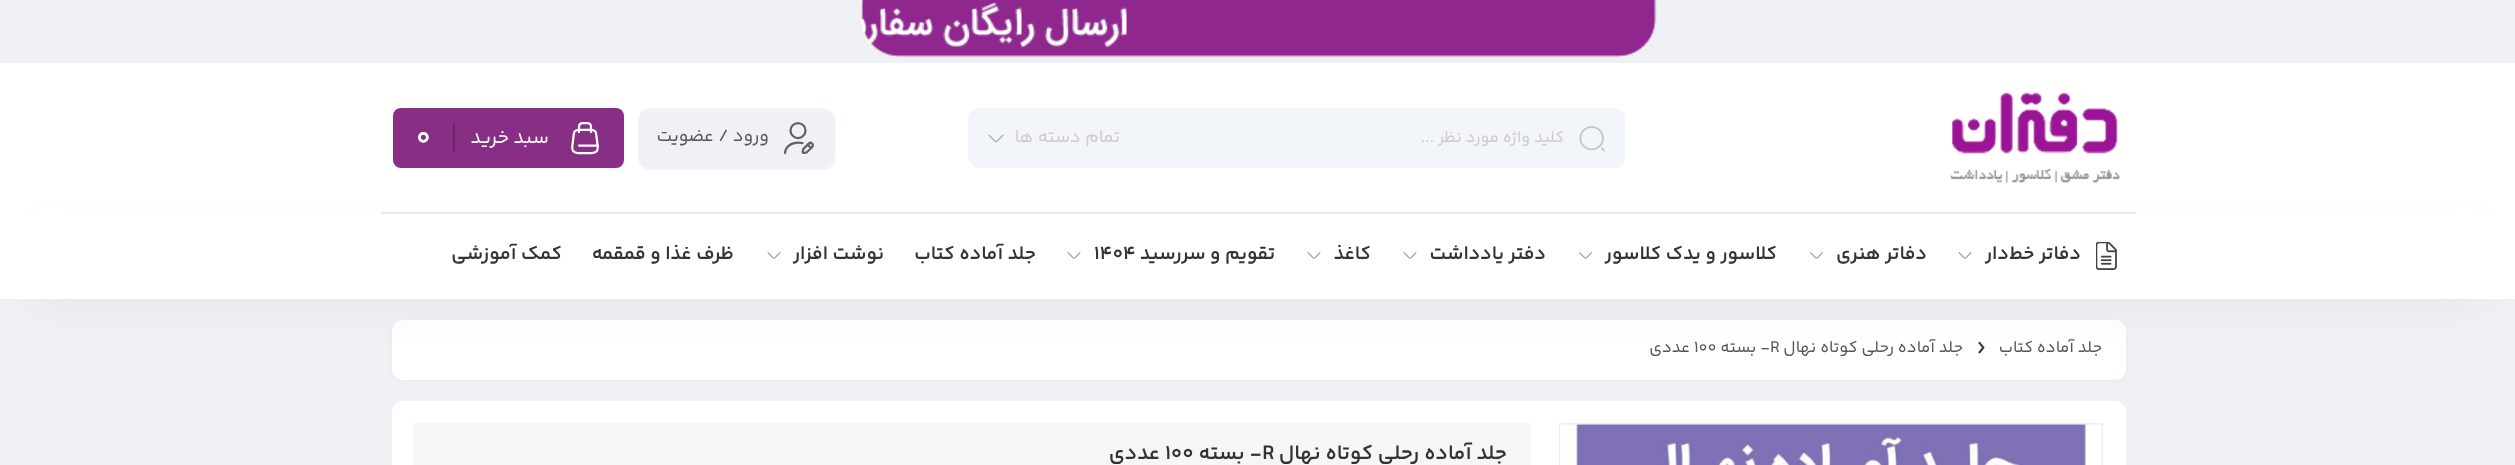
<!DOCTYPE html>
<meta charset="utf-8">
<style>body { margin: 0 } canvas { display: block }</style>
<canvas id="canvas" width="2515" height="465"></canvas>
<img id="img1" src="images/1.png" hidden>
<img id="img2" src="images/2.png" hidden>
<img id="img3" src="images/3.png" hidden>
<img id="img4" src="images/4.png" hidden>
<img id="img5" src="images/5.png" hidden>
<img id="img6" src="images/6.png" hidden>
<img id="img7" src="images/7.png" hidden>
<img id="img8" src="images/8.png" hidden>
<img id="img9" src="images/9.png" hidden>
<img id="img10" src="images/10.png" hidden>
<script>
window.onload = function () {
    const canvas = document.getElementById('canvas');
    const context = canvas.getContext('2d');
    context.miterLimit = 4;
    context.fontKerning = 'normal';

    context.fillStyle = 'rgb(239, 241, 245)';
    context.fillRect(0, 0, 2515, 465);
    context.drawImage(document.getElementById('img1'), 861, 0, 796, 58);
    context.fillStyle = 'rgb(255, 255, 255)';
    context.fillRect(0, 63, 2515, 149);
    context.drawImage(document.getElementById('img2'), 1950, 92, 170, 91);
    context.fillStyle = 'rgb(242, 245, 250)';
    context.beginPath();
    context.roundRect(968, 108, 657, 60, 11);
    context.fill();
    context.drawImage(document.getElementById('img3'), 1579, 126, 26, 26);
    context.drawImage(document.getElementById('img4'), 988, 134, 16, 9);
    context.beginPath();
    context.roundRect(639, 109, 196, 60, 11);
    context.strokeStyle = 'rgb(242, 245, 250)';
    context.lineWidth = 2;
    context.stroke();
    context.fillStyle = 'rgb(239, 241, 245)';
    context.beginPath();
    context.roundRect(639, 110, 195, 58, 11);
    context.fill();
    context.drawImage(document.getElementById('img5'), 784, 122, 31, 33);
    context.fillStyle = 'rgba(0, 0, 0, 0.1)';
    context.filter = 'blur(5px)';
    context.beginPath();
    context.roundRect(398, 114, 222, 51, 3);
    context.fill();
    context.filter = 'none';
    context.fillStyle = 'rgb(136, 46, 133)';
    context.beginPath();
    context.roundRect(393, 108, 231, 60, 8);
    context.fill();
    context.drawImage(document.getElementById('img6'), 571, 122, 28, 33);
    context.fillStyle = 'rgb(109, 37, 106)';
    context.fillRect(453, 123, 2, 30);
    context.fillStyle = 'rgba(0, 0, 0, 0.1)';
    context.filter = 'blur(5px)';
    context.beginPath();
    context.roundRect(396, 326, 1725, 51, 6);
    context.fill();
    context.filter = 'none';
    context.fillStyle = 'rgb(255, 255, 255)';
    context.beginPath();
    context.roundRect(392, 320, 1734, 60, 11);
    context.fill();
    context.fillStyle = 'rgba(103, 108, 118, 0.4)';
    context.filter = 'blur(28px)';
    context.beginPath();
    context.rect(36, 263, 2444, 15);
    context.fill();
    context.filter = 'none';
    context.fillStyle = 'rgb(255, 255, 255)';
    context.fillRect(0, 212, 2515, 87);
    context.fillStyle = 'rgb(232, 232, 232)';
    context.fillRect(381, 212, 1755, 2);
    context.drawImage(document.getElementById('img7'), 2096, 242, 21, 28);
    context.drawImage(document.getElementById('img8'), 1958, 252, 14, 7);
    context.drawImage(document.getElementById('img9'), 1810, 252, 13, 7);
    context.drawImage(document.getElementById('img9'), 1579, 252, 13, 7);
    context.drawImage(document.getElementById('img8'), 1403, 252, 14, 7);
    context.drawImage(document.getElementById('img8'), 1307, 252, 14, 7);
    context.drawImage(document.getElementById('img8'), 1067, 252, 14, 7);
    context.drawImage(document.getElementById('img8'), 767, 252, 14, 7);
    context.fillStyle = 'rgb(255, 255, 255)';
    context.beginPath();
    context.roundRect(392, 401, 1734, 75, 11);
    context.fill();
    context.strokeStyle = 'rgb(238, 238, 238)';
    context.strokeRect(1560, 424, 542, 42);
    context.drawImage(document.getElementById('img10'), 1560, 424, 542, 41);
    context.fillStyle = 'rgb(245, 246, 247)';
    context.fillRect(414, 423, 1116, 42);
    context.direction = 'rtl';
    context.font = '16.5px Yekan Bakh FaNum';
    context.fillStyle = 'rgb(203, 204, 210)';
    context.fillText('کلید واژه مورد نظر ...', 1564, 142);
    context.font = '18px Yekan Bakh FaNum';
    context.fillStyle = 'rgb(204, 204, 204)';
    context.fillText('تمام دسته ها', 1120, 142);
    context.fillStyle = 'rgb(85, 85, 85)';
    context.fillText('ورود / عضویت', 769, 141);
    context.font = '19.5px Yekan Bakh FaNum';
    context.fillStyle = 'rgb(255, 255, 255)';
    context.fillText('سبد خرید', 549, 143);
    context.direction = 'ltr';
    context.font = '600 27px Yekan Bakh FaNum';
    context.fillText('0', 416, 145);
    context.direction = 'rtl';
    context.font = '600 19.5px Yekan Bakh FaNum';
    context.fillStyle = 'rgb(51, 51, 51)';
    context.fillText('دفاتر خط‌دار', 2081, 259);
    context.fillText('دفاتر هنری', 1927, 259);
    context.fillText('کلاسور و یدک کلاسور', 1777, 259);
    context.fillText('دفتر یادداشت', 1546, 259);
    context.fillText('کاغذ', 1371, 259);
    context.fillText('تقویم و سررسید', 1275, 259);
    context.direction = 'ltr';
    context.fillText('1404', 1094, 259);
    context.direction = 'rtl';
    context.fillText('جلد آماده کتاب', 1036, 259);
    context.fillText('نوشت افزار', 884, 259);
    context.fillText('ظرف غذا و قمقمه', 734, 259);
    context.fillText('کمک آموزشی', 562, 259);
    context.font = '16.5px Yekan Bakh FaNum';
    context.fillStyle = 'rgb(85, 85, 85)';
    context.fillText('جلد آماده کتاب', 2102, 352);
    context.direction = 'ltr';
    context.font = '28px Noto Sans';
    context.fillStyle = 'rgb(51, 51, 51)';
    context.fillText('›', 1977, 355);
    context.direction = 'rtl';
    context.font = '16.5px Yekan Bakh FaNum';
    context.fillStyle = 'rgb(85, 85, 85)';
    context.fillText('جلد آماده رحلی کوتاه نهال', 1963, 352);
    context.direction = 'ltr';
    context.fillText('R', 1770, 352);
    context.direction = 'rtl';
    context.fillText('- بسته', 1770, 352);
    context.direction = 'ltr';
    context.fillText('100', 1694, 352);
    context.direction = 'rtl';
    context.fillText('عددی', 1690, 352);
    context.font = '600 21px Yekan Bakh FaNum';
    context.fillStyle = 'rgb(51, 51, 51)';
    context.fillText('جلد آماده رحلی کوتاه نهال', 1507, 459);
    context.direction = 'ltr';
    context.fillText('R', 1262, 459);
    context.direction = 'rtl';
    context.fillText('- بسته', 1262, 459);
    context.direction = 'ltr';
    context.fillText('100', 1165, 459);
    context.direction = 'rtl';
    context.fillText('عددی', 1160, 459);
};
</script>
